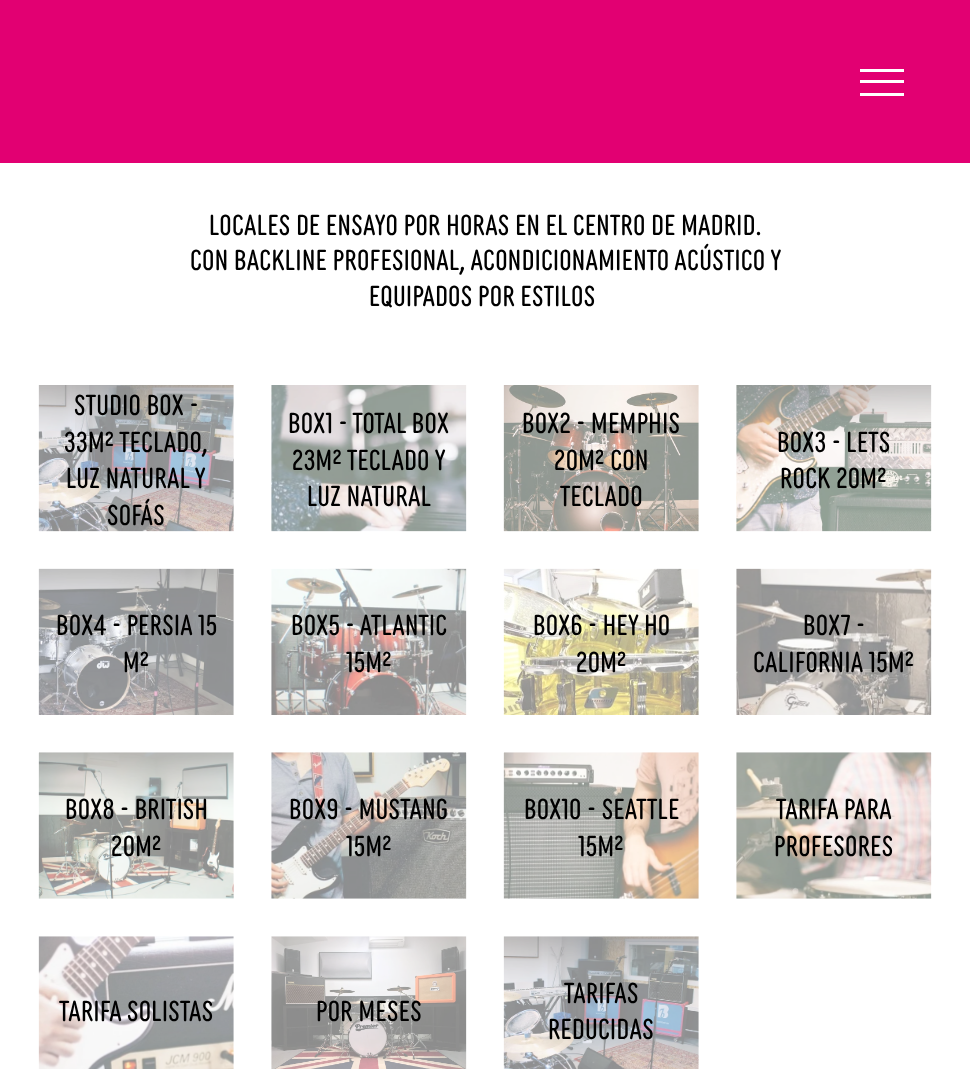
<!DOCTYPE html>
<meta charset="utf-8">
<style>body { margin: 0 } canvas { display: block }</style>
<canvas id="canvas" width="970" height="1069"></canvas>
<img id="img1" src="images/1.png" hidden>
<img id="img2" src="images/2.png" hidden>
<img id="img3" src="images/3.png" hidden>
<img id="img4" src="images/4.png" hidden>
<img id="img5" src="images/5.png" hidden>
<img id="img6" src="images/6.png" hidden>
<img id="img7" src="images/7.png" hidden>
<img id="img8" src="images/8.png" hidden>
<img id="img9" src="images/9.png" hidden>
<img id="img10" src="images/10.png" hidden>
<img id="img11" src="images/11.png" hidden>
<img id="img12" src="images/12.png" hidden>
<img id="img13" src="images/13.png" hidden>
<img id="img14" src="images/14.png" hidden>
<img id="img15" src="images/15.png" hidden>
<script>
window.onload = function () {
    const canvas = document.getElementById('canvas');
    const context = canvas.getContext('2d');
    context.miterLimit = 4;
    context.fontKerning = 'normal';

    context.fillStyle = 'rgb(255, 255, 255)';
    context.fillRect(0, 0, 970, 1069);
    context.fillStyle = 'rgb(226, 0, 114)';
    context.fillRect(0, 0, 970, 163);
    context.fillStyle = 'rgb(255, 255, 255)';
    context.fillRect(860, 69, 44, 3);
    context.fillRect(860, 80, 44, 3);
    context.fillRect(860, 93, 44, 3);
    context.drawImage(document.getElementById('img1'), 38, 385, 196, 147);
    context.drawImage(document.getElementById('img2'), 271, 385, 196, 147);
    context.drawImage(document.getElementById('img3'), 503, 385, 196, 147);
    context.drawImage(document.getElementById('img4'), 736, 385, 196, 147);
    context.drawImage(document.getElementById('img5'), 38, 568, 196, 147);
    context.drawImage(document.getElementById('img6'), 271, 568, 196, 147);
    context.drawImage(document.getElementById('img7'), 503, 568, 196, 147);
    context.drawImage(document.getElementById('img8'), 736, 568, 196, 147);
    context.drawImage(document.getElementById('img9'), 38, 752, 196, 147);
    context.drawImage(document.getElementById('img10'), 271, 752, 196, 147);
    context.drawImage(document.getElementById('img11'), 503, 752, 196, 147);
    context.drawImage(document.getElementById('img12'), 736, 752, 196, 147);
    context.drawImage(document.getElementById('img13'), 38, 936, 196, 133);
    context.drawImage(document.getElementById('img14'), 271, 936, 196, 133);
    context.drawImage(document.getElementById('img15'), 503, 936, 196, 133);
    context.letterSpacing = '0.28px';
    context.font = '28.1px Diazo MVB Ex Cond';
    context.fillStyle = 'rgb(0, 0, 0)';
    context.fillText('Locales de ensayo por horas en el centro de Madrid.', 209, 235);
    context.fillText('Con backline profesional, acondicionamiento acústico y', 190, 270);
    context.fillText('equipados por estilos', 369, 306);
    context.fillText('Studio Box -', 74, 415);
    context.fillText('33m² teclado,', 64, 452);
    context.fillText('luz natural y', 66, 488);
    context.fillText('sofás', 107, 525);
    context.fillText('Box1 - Total Box', 288, 433);
    context.fillText('23m² teclado y', 292, 470);
    context.fillText('luz natural', 307, 506);
    context.fillText('Box2 - Memphis', 522, 433);
    context.fillText('20m² con', 554, 470);
    context.fillText('teclado', 560, 506);
    context.fillText('Box3 - Lets', 777, 452);
    context.fillText('Rock 20m²', 780, 488);
    context.fillText('Box4 - Persia 15', 56, 635);
    context.fillText('m²', 123, 672);
    context.fillText('Box5 - Atlantic', 291, 635);
    context.fillText('15m²', 346, 672);
    context.fillText('Box6 - Hey Ho', 533, 635);
    context.fillText('20m²', 576, 672);
    context.fillText('Box7 -', 803, 635);
    context.fillText('California 15m²', 753, 672);
    context.fillText('Box8 - British', 65, 819);
    context.fillText('20m²', 111, 856);
    context.fillText('Box9 - Mustang', 289, 819);
    context.fillText('15m²', 346, 856);
    context.fillText('Box10 - Seattle', 524, 819);
    context.fillText('15m²', 578, 856);
    context.fillText('Tarifa para', 776, 819);
    context.fillText('profesores', 774, 856);
    context.fillText('Tarifa Solistas', 59, 1021);
    context.fillText('Por meses', 316, 1021);
    context.fillText('Tarifas', 564, 1003);
    context.fillText('reducidas', 548, 1039);
};
</script>
